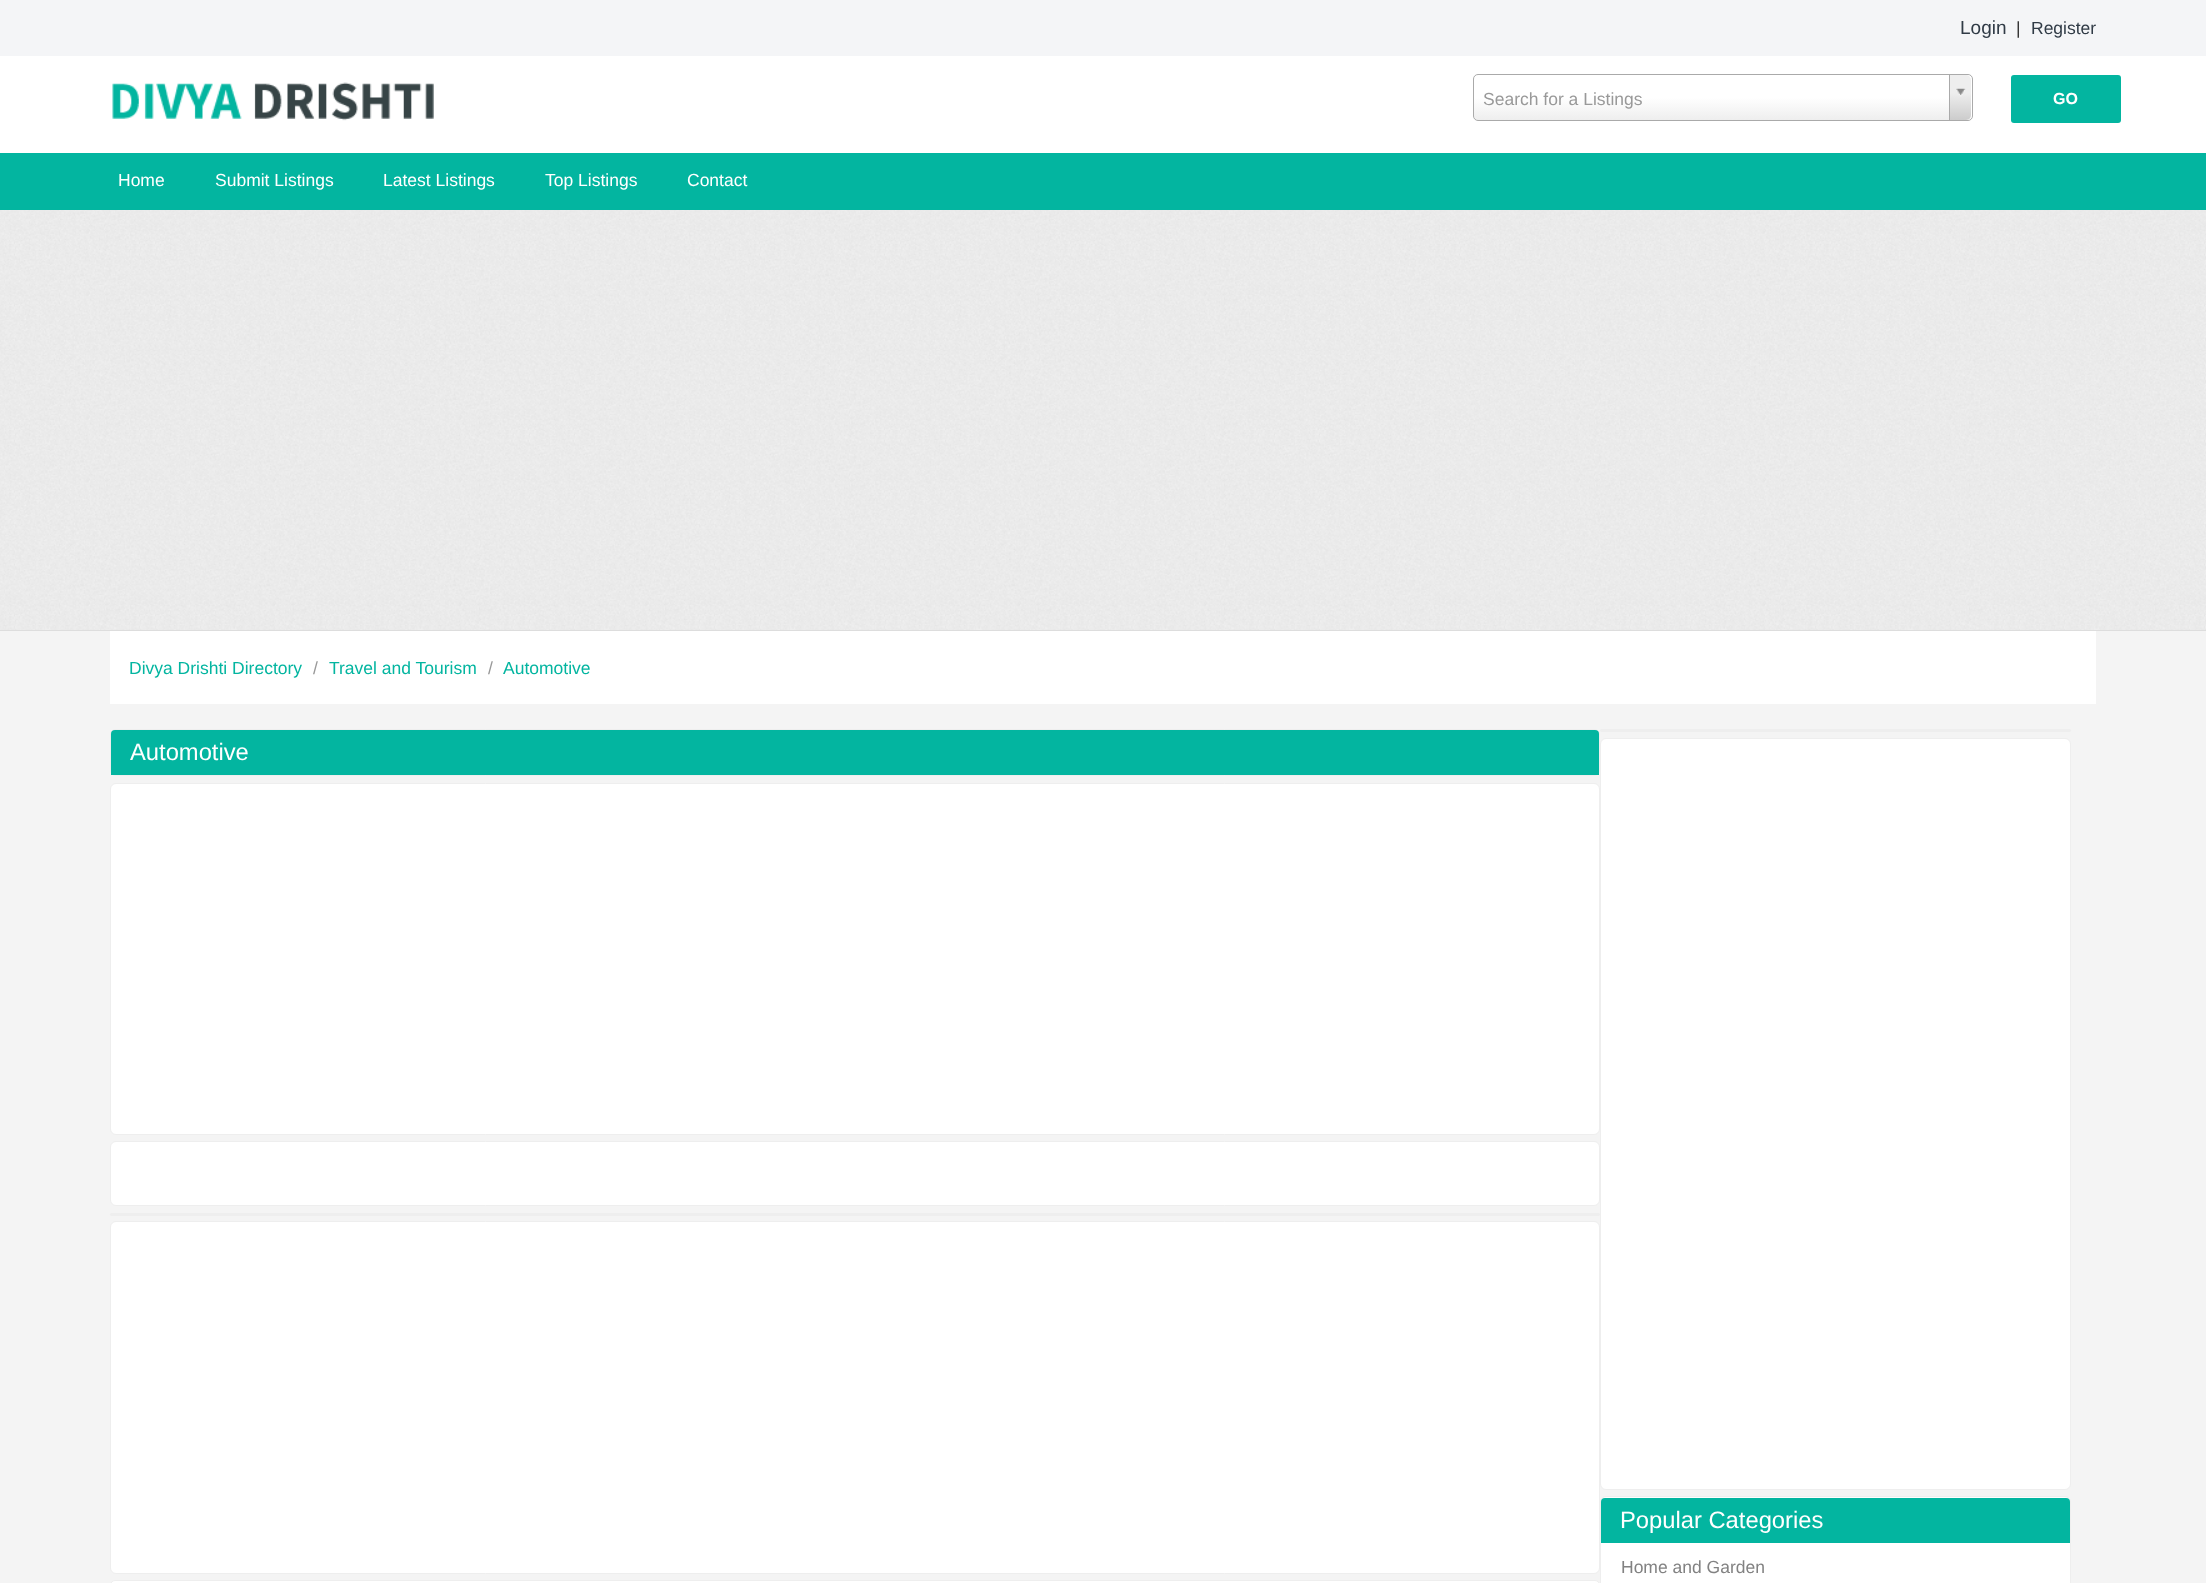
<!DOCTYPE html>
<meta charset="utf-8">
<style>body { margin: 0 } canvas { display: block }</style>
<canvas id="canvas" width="2206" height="1583"></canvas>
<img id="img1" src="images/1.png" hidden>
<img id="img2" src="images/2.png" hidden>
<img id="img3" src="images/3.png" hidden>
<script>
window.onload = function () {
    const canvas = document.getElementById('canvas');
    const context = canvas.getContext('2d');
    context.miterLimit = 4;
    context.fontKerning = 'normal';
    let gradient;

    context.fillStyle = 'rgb(255, 255, 255)';
    context.fillRect(0, 0, 2206, 1583);
    context.drawImage(document.getElementById('img1'), 0, 210, 2206, 420);
    context.fillStyle = 'rgb(244, 245, 247)';
    context.fillRect(0, 0, 2206, 56);
    context.drawImage(document.getElementById('img2'), 112, 82, 322, 39);
    gradient = context.createLinearGradient(1474, 120, 1474, 75);
    gradient.addColorStop(0, 'rgb(238, 238, 238)');
    gradient.addColorStop(0.5, 'rgb(255, 255, 255)');
    context.fillStyle = gradient;
    context.beginPath();
    context.roundRect(1474, 75, 497, 45, 4);
    context.fill();
    context.beginPath();
    context.roundRect(1473.5, 74.5, 499, 46, 4.5);
    context.strokeStyle = 'rgb(170, 170, 170)';
    context.stroke();
    context.save();
    context.beginPath();
    context.roundRect(1474, 75, 497, 45, 4);
    context.clip();
    gradient = context.createLinearGradient(1950, 120, 1950, 75);
    gradient.addColorStop(0, 'rgb(204, 204, 204)');
    gradient.addColorStop(0.6, 'rgb(238, 238, 238)');
    context.fillStyle = gradient;
    context.beginPath();
    context.roundRect(1949, 75, 22, 45, [0, 5, 5, 0]);
    context.fill();
    context.restore();
    context.fillStyle = 'rgb(170, 170, 170)';
    context.fillRect(1949, 75, 1, 45);
    context.drawImage(document.getElementById('img3'), 1956, 88, 10, 9);
    context.fillStyle = 'rgb(3, 181, 160)';
    context.beginPath();
    context.roundRect(2011, 75, 110, 48, 3);
    context.fill();
    context.fillRect(0, 153, 2206, 57);
    context.fillStyle = 'rgb(244, 244, 244)';
    context.fillRect(0, 631, 2206, 952);
    context.fillStyle = 'rgb(221, 221, 221)';
    context.fillRect(0, 630, 2206, 1);
    context.fillStyle = 'rgb(255, 255, 255)';
    context.fillRect(110, 631, 1986, 73);
    context.beginPath();
    context.roundRect(110.5, 729.5, 1489, 46, 5.5);
    context.strokeStyle = 'rgb(238, 238, 238)';
    context.stroke();
    context.fillStyle = 'rgb(3, 181, 160)';
    context.beginPath();
    context.roundRect(111, 730, 1488, 45, [4, 4, 0, 0]);
    context.fill();
    context.fillStyle = 'rgb(255, 255, 255)';
    context.beginPath();
    context.roundRect(110.5, 783.5, 1489, 351, 5.5);
    context.fill();
    context.stroke();
    context.beginPath();
    context.roundRect(110.5, 1141.5, 1489, 64, 5.5);
    context.fill();
    context.stroke();
    context.fillStyle = 'rgb(238, 238, 238)';
    context.beginPath();
    context.roundRect(110, 1213, 1490, 3, 1.5);
    context.fill();
    context.fillStyle = 'rgb(255, 255, 255)';
    context.beginPath();
    context.roundRect(110.5, 1221.5, 1489, 352, 5.5);
    context.fill();
    context.stroke();
    context.beginPath();
    context.roundRect(110.5, 1580.5, 1489, 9, 5.5);
    context.fill();
    context.stroke();
    context.fillStyle = 'rgb(238, 238, 238)';
    context.beginPath();
    context.roundRect(1600, 729, 471, 3, 1.5);
    context.fill();
    context.fillStyle = 'rgb(255, 255, 255)';
    context.beginPath();
    context.roundRect(1600.5, 738.5, 470, 751, 5.5);
    context.fill();
    context.stroke();
    context.beginPath();
    context.roundRect(1600.5, 1496.5, 470, 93, 5.5);
    context.fill();
    context.stroke();
    context.fillStyle = 'rgb(3, 181, 160)';
    context.beginPath();
    context.roundRect(1601, 1498, 469, 45, [4, 4, 0, 0]);
    context.fill();
    context.font = '19px Liberation Sans';
    context.fillStyle = 'rgb(48, 59, 70)';
    context.fillText('Login', 1960, 34);
    context.font = '17.5px Liberation Sans';
    context.fillStyle = 'rgb(51, 51, 51)';
    context.fillText('|', 2016, 34);
    context.fillStyle = 'rgb(48, 59, 70)';
    context.fillText('Register', 2031, 34);
    context.fillStyle = 'rgb(153, 153, 153)';
    context.fillText('Search for a Listings', 1483, 105);
    context.font = 'bold 16px Liberation Sans';
    context.fillStyle = 'rgb(255, 255, 255)';
    context.fillText('GO', 2053, 104);
    context.font = '17.5px Liberation Sans';
    context.fillText('Home', 118, 186);
    context.fillText('Submit Listings', 215, 186);
    context.fillText('Latest Listings', 383, 186);
    context.fillText('Top Listings', 545, 186);
    context.fillText('Contact', 687, 186);
    context.fillStyle = 'rgb(3, 181, 160)';
    context.fillText('Divya Drishti Directory', 129, 674);
    context.fillStyle = 'rgb(153, 153, 153)';
    context.fillText('/', 313, 674);
    context.fillStyle = 'rgb(3, 181, 160)';
    context.fillText('Travel and Tourism', 329, 674);
    context.fillStyle = 'rgb(153, 153, 153)';
    context.fillText('/', 488, 674);
    context.fillStyle = 'rgb(3, 181, 160)';
    context.fillText('Automotive', 503, 674);
    context.font = '23.75px Liberation Sans';
    context.fillStyle = 'rgb(255, 255, 255)';
    context.fillText('Automotive', 130, 760);
    context.fillText('Popular Categories', 1620, 1528);
    context.font = '17.5px Liberation Sans';
    context.fillStyle = 'rgb(130, 130, 130)';
    context.fillText('Home and Garden', 1621, 1573);
};
</script>
